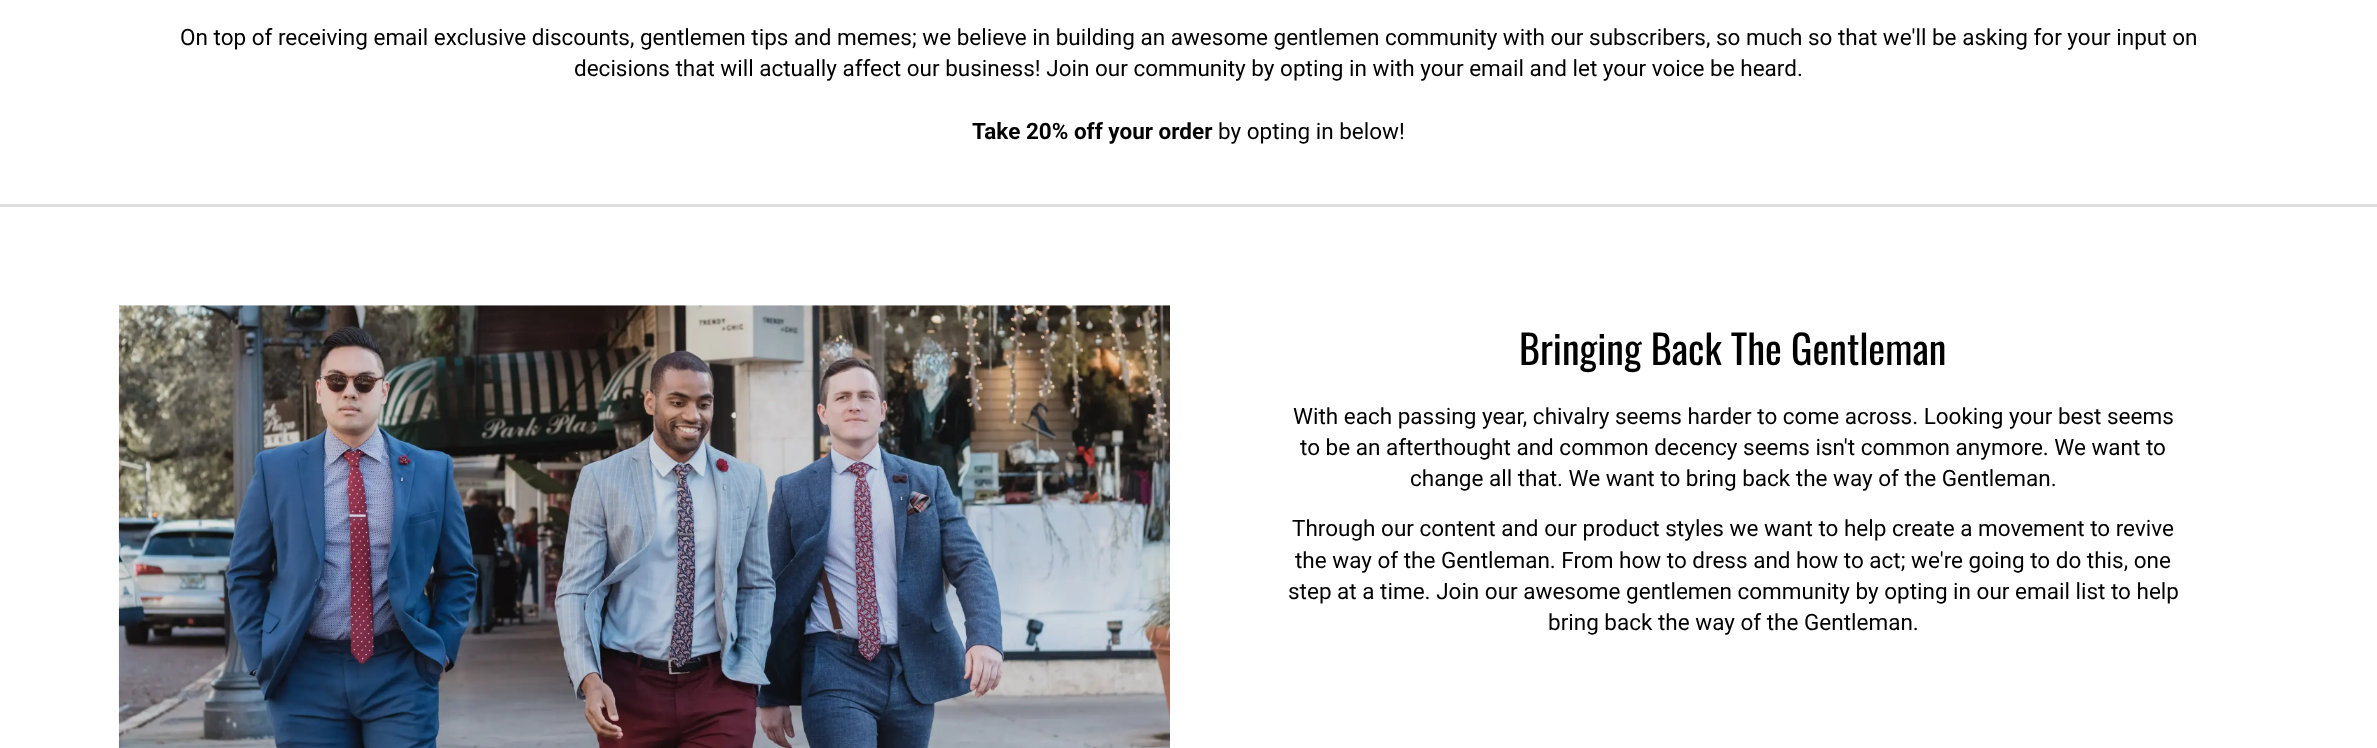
<!DOCTYPE html>
<meta charset="utf-8">
<style>body { margin: 0 } canvas { display: block }</style>
<canvas id="canvas" width="2377" height="748"></canvas>
<img id="img1" src="images/1.png" hidden>
<script>
window.onload = function () {
    const canvas = document.getElementById('canvas');
    const context = canvas.getContext('2d');
    context.miterLimit = 4;
    context.fontKerning = 'normal';

    context.fillStyle = 'rgb(255, 255, 255)';
    context.fillRect(0, 0, 2377, 748);
    context.fillStyle = 'rgb(221, 221, 221)';
    context.fillRect(0, 204, 2377, 3);
    context.drawImage(document.getElementById('img1'), 118, 305, 1052, 443);
    context.font = '22.5px Roboto';
    context.fillStyle = 'rgb(0, 0, 0)';
    context.fillText('On top of receiving email exclusive discounts, gentlemen tips and memes; we believe in building an awesome gentlemen community with our subscribers, so much so that we\'ll be asking for your input on', 180, 45);
    context.fillText('decisions that will actually affect our business! Join our community by opting in with your email and let your voice be heard.', 574, 76);
    context.font = 'bold 22.5px Roboto';
    context.fillText('Take 20% off your order', 972, 139);
    context.font = '22.5px Roboto';
    context.fillText('by opting in below!', 1218, 139);
    context.font = '40px Oswald';
    context.fillText('Bringing Back The Gentleman', 1519, 365);
    context.font = '22.5px Roboto';
    context.fillText('With each passing year, chivalry seems harder to come across. Looking your best seems', 1293, 424);
    context.fillText('to be an afterthought and common decency seems isn\'t common anymore. We want to', 1300, 455);
    context.fillText('change all that. We want to bring back the way of the Gentleman.', 1410, 486);
    context.fillText('Through our content and our product styles we want to help create a movement to revive', 1292, 536);
    context.fillText('the way of the Gentleman. From how to dress and how to act; we\'re going to do this, one', 1295, 568);
    context.fillText('step at a time. Join our awesome gentlemen community by opting in our email list to help', 1288, 599);
    context.fillText('bring back the way of the Gentleman.', 1548, 630);
};
</script>
